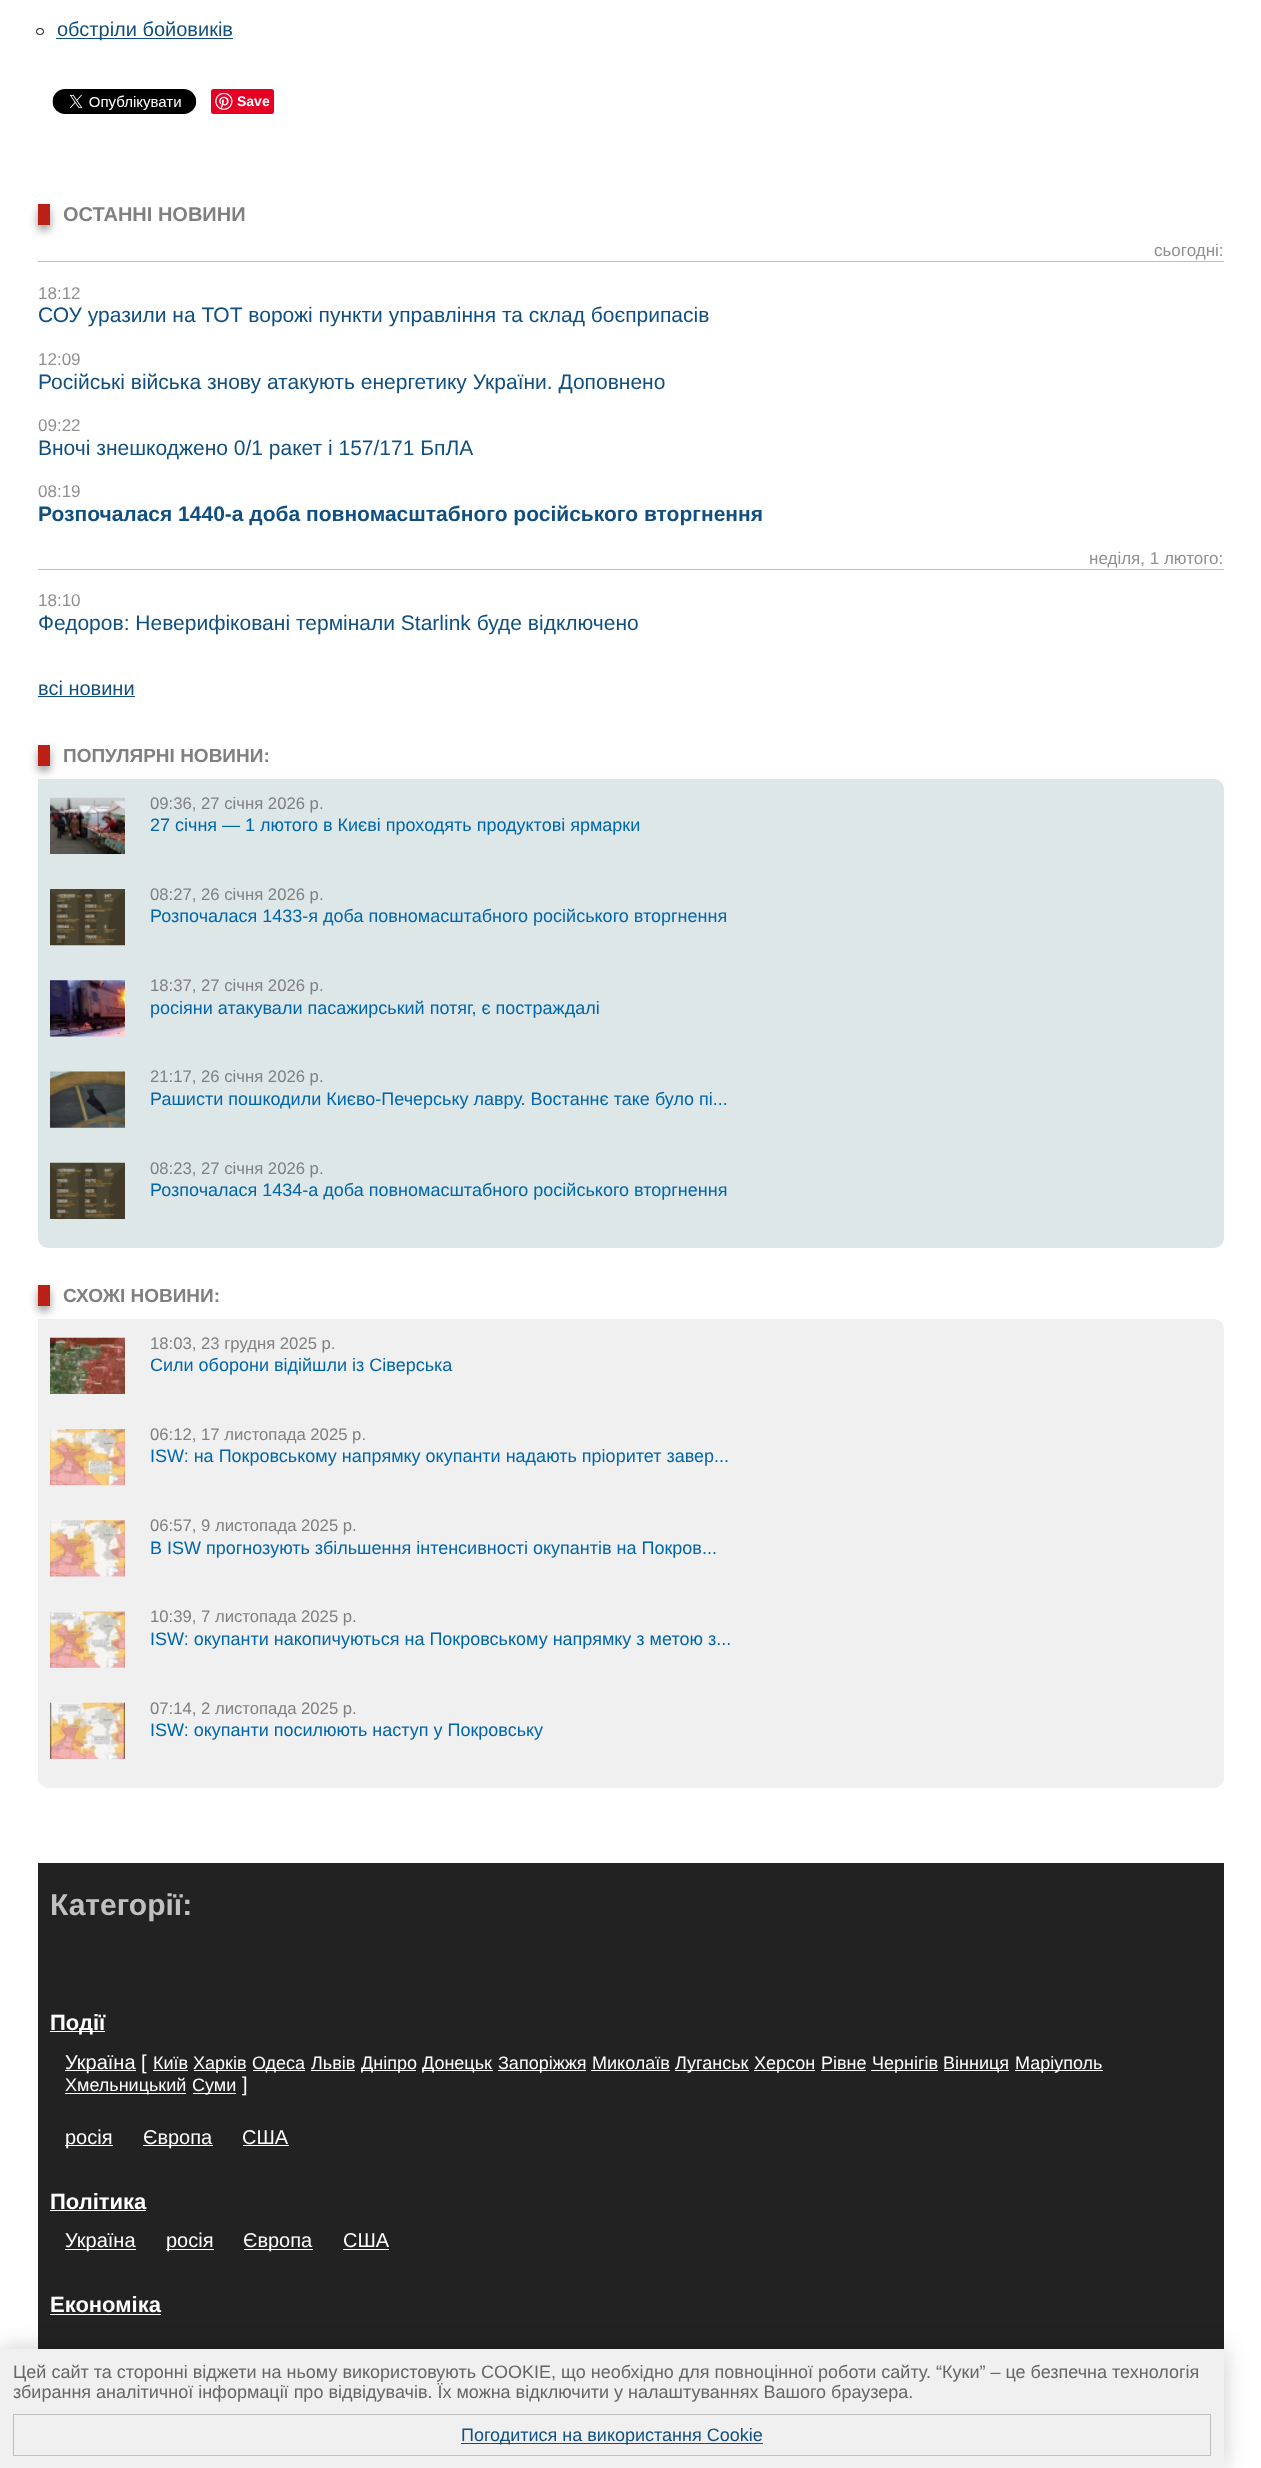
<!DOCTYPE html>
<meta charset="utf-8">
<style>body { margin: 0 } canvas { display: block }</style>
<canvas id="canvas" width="1261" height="2468"></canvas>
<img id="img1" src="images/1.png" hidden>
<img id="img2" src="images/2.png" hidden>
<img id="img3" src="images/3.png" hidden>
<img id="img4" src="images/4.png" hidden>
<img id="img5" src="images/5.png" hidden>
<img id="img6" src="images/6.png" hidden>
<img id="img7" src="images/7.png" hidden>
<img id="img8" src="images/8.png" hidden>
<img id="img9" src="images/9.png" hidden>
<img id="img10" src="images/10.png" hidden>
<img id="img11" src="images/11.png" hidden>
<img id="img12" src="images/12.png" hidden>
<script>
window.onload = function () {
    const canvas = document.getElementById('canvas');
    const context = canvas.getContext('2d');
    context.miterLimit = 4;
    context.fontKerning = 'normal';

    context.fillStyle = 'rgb(255, 255, 255)';
    context.fillRect(0, 0, 1261, 2468);
    context.beginPath();
    context.roundRect(36.5, 28.5, 7, 6, 3);
    context.strokeStyle = 'rgb(0, 0, 0)';
    context.stroke();
    context.fillStyle = 'rgb(16, 79, 127)';
    context.fillRect(56, 38, 177, 1);
    context.drawImage(document.getElementById('img1'), 52, 89, 145, 25);
    context.fillStyle = 'rgb(230, 0, 35)';
    context.beginPath();
    context.roundRect(211, 89, 63, 25, 2.5);
    context.fill();
    context.drawImage(document.getElementById('img2'), 215, 93, 18, 17);
    context.fillStyle = 'rgba(0, 0, 0, 0.4)';
    context.filter = 'blur(4px)';
    context.beginPath();
    context.rect(38, 209, 12, 21);
    context.fill();
    context.filter = 'none';
    context.fillStyle = 'rgb(187, 32, 23)';
    context.fillRect(38, 204, 12, 21);
    context.fillStyle = 'rgb(192, 192, 192)';
    context.fillRect(38, 261, 1186, 1);
    context.fillRect(38, 569, 1186, 1);
    context.fillStyle = 'rgb(16, 79, 127)';
    context.fillRect(38, 696, 97, 1);
    context.fillStyle = 'rgb(221, 231, 232)';
    context.beginPath();
    context.roundRect(38, 779, 1186, 469, [0, 10, 10, 10]);
    context.fill();
    context.fillStyle = 'rgba(0, 0, 0, 0.4)';
    context.filter = 'blur(4px)';
    context.beginPath();
    context.rect(38, 750, 12, 21);
    context.fill();
    context.filter = 'none';
    context.fillStyle = 'rgb(187, 32, 23)';
    context.fillRect(38, 745, 12, 21);
    context.drawImage(document.getElementById('img3'), 50, 797, 75, 57);
    context.drawImage(document.getElementById('img4'), 50, 889, 75, 57);
    context.drawImage(document.getElementById('img5'), 50, 980, 75, 57);
    context.drawImage(document.getElementById('img6'), 50, 1071, 75, 57);
    context.drawImage(document.getElementById('img7'), 50, 1162, 75, 57);
    context.fillStyle = 'rgb(240, 240, 240)';
    context.beginPath();
    context.roundRect(38, 1319, 1186, 469, [0, 10, 10, 10]);
    context.fill();
    context.fillStyle = 'rgba(0, 0, 0, 0.4)';
    context.filter = 'blur(4px)';
    context.beginPath();
    context.rect(38, 1290, 12, 21);
    context.fill();
    context.filter = 'none';
    context.fillStyle = 'rgb(187, 32, 23)';
    context.fillRect(38, 1285, 12, 21);
    context.drawImage(document.getElementById('img8'), 50, 1337, 75, 57);
    context.drawImage(document.getElementById('img9'), 50, 1429, 75, 57);
    context.drawImage(document.getElementById('img10'), 50, 1520, 75, 57);
    context.drawImage(document.getElementById('img11'), 50, 1611, 75, 57);
    context.drawImage(document.getElementById('img12'), 50, 1702, 75, 57);
    context.fillStyle = 'rgb(34, 34, 34)';
    context.fillRect(38, 1863, 1186, 486);
    context.fillStyle = 'rgb(255, 255, 255)';
    context.fillRect(50, 2031, 55, 1);
    context.fillRect(65, 2070, 71, 1);
    context.fillRect(153, 2070, 35, 1);
    context.fillRect(194, 2070, 52, 1);
    context.fillRect(253, 2070, 52, 1);
    context.fillRect(311, 2070, 44, 1);
    context.fillRect(361, 2070, 55, 1);
    context.fillRect(423, 2070, 70, 1);
    context.fillRect(498, 2070, 88, 1);
    context.fillRect(591, 2070, 79, 1);
    context.fillRect(675, 2070, 74, 1);
    context.fillRect(754, 2070, 61, 1);
    context.fillRect(821, 2070, 45, 1);
    context.fillRect(871, 2070, 67, 1);
    context.fillRect(944, 2070, 65, 1);
    context.fillRect(1015, 2070, 88, 1);
    context.fillRect(65, 2093, 121, 1);
    context.fillRect(193, 2093, 43, 1);
    context.fillRect(65, 2145, 48, 1);
    context.fillRect(143, 2145, 70, 1);
    context.fillRect(243, 2145, 46, 1);
    context.fillRect(50, 2210, 96, 1);
    context.fillRect(65, 2249, 71, 1);
    context.fillRect(166, 2249, 48, 1);
    context.fillRect(244, 2249, 69, 1);
    context.fillRect(343, 2249, 46, 1);
    context.fillRect(50, 2314, 111, 1);
    context.fillStyle = 'rgba(0, 0, 0, 0.2)';
    context.filter = 'blur(12.5px)';
    context.beginPath();
    context.rect(0, 2349, 1224, 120);
    context.fill();
    context.filter = 'none';
    context.fillStyle = 'rgb(240, 240, 240)';
    context.fillRect(0, 2349, 1224, 119);
    context.strokeStyle = 'rgb(192, 192, 192)';
    context.strokeRect(13.5, 2414.5, 1197, 41);
    context.fillStyle = 'rgb(16, 79, 127)';
    context.fillRect(461, 2443, 302, 1);
    context.font = '20px Liberation Sans';
    context.fillText('обстріли бойовиків', 57, 36);
    context.font = 'bold 14px Liberation Sans';
    context.fillStyle = 'rgb(255, 255, 255)';
    context.fillText('Save', 237, 106);
    context.font = 'bold 20px Liberation Sans';
    context.fillStyle = 'rgb(128, 128, 128)';
    context.fillText('ОСТАННІ НОВИНИ', 63, 221);
    context.font = '17px Liberation Sans';
    context.fillStyle = 'rgb(144, 144, 144)';
    context.fillText('сьогодні:', 1154, 256);
    context.fillText('18:12', 38, 299);
    context.font = '21px Liberation Sans';
    context.fillStyle = 'rgb(16, 79, 127)';
    context.fillText('СОУ уразили на ТОТ ворожі пункти управління та склад боєприпасів', 38, 322);
    context.font = '17px Liberation Sans';
    context.fillStyle = 'rgb(144, 144, 144)';
    context.fillText('12:09', 38, 365);
    context.font = '21px Liberation Sans';
    context.fillStyle = 'rgb(16, 79, 127)';
    context.fillText('Російські війська знову атакують енергетику України. Доповнено', 38, 389);
    context.font = '17px Liberation Sans';
    context.fillStyle = 'rgb(144, 144, 144)';
    context.fillText('09:22', 38, 431);
    context.font = '21px Liberation Sans';
    context.fillStyle = 'rgb(16, 79, 127)';
    context.fillText('Вночі знешкоджено 0/1 ракет і 157/171 БпЛА', 38, 455);
    context.font = '17px Liberation Sans';
    context.fillStyle = 'rgb(144, 144, 144)';
    context.fillText('08:19', 38, 497);
    context.font = 'bold 21px Liberation Sans';
    context.fillStyle = 'rgb(16, 79, 127)';
    context.fillText('Розпочалася 1440-а доба повномасштабного російського вторгнення', 38, 521);
    context.font = '17px Liberation Sans';
    context.fillStyle = 'rgb(144, 144, 144)';
    context.fillText('неділя, 1 лютого:', 1089, 564);
    context.fillText('18:10', 38, 606);
    context.font = '21px Liberation Sans';
    context.fillStyle = 'rgb(16, 79, 127)';
    context.fillText('Федоров: Неверифіковані термінали Starlink буде відключено', 38, 630);
    context.font = '20px Liberation Sans';
    context.fillText('всі новини', 38, 695);
    context.font = 'bold 19px Liberation Sans';
    context.fillStyle = 'rgb(128, 128, 128)';
    context.fillText('ПОПУЛЯРНІ НОВИНИ:', 63, 762);
    context.font = '16.7px Liberation Sans';
    context.fillText('09:36, 27 січня 2026 р.', 150, 809);
    context.font = '18px Liberation Sans';
    context.fillStyle = 'rgb(0, 102, 170)';
    context.fillText('27 січня — 1 лютого в Києві проходять продуктові ярмарки', 150, 831);
    context.font = '16.7px Liberation Sans';
    context.fillStyle = 'rgb(128, 128, 128)';
    context.fillText('08:27, 26 січня 2026 р.', 150, 900);
    context.font = '18px Liberation Sans';
    context.fillStyle = 'rgb(0, 102, 170)';
    context.fillText('Розпочалася 1433-я доба повномасштабного російського вторгнення', 150, 922);
    context.font = '16.7px Liberation Sans';
    context.fillStyle = 'rgb(128, 128, 128)';
    context.fillText('18:37, 27 січня 2026 р.', 150, 991);
    context.font = '18px Liberation Sans';
    context.fillStyle = 'rgb(0, 102, 170)';
    context.fillText('росіяни атакували пасажирський потяг, є постраждалі', 150, 1014);
    context.font = '16.7px Liberation Sans';
    context.fillStyle = 'rgb(128, 128, 128)';
    context.fillText('21:17, 26 січня 2026 р.', 150, 1082);
    context.font = '18px Liberation Sans';
    context.fillStyle = 'rgb(0, 102, 170)';
    context.fillText('Рашисти пошкодили Києво-Печерську лавру. Востаннє таке було пі...', 150, 1105);
    context.font = '16.7px Liberation Sans';
    context.fillStyle = 'rgb(128, 128, 128)';
    context.fillText('08:23, 27 січня 2026 р.', 150, 1174);
    context.font = '18px Liberation Sans';
    context.fillStyle = 'rgb(0, 102, 170)';
    context.fillText('Розпочалася 1434-а доба повномасштабного російського вторгнення', 150, 1196);
    context.font = 'bold 19px Liberation Sans';
    context.fillStyle = 'rgb(128, 128, 128)';
    context.fillText('СХОЖІ НОВИНИ:', 63, 1302);
    context.font = '16.7px Liberation Sans';
    context.fillText('18:03, 23 грудня 2025 р.', 150, 1349);
    context.font = '18px Liberation Sans';
    context.fillStyle = 'rgb(0, 102, 170)';
    context.fillText('Сили оборони відійшли із Сіверська', 150, 1371);
    context.font = '16.7px Liberation Sans';
    context.fillStyle = 'rgb(128, 128, 128)';
    context.fillText('06:12, 17 листопада 2025 р.', 150, 1440);
    context.font = '18px Liberation Sans';
    context.fillStyle = 'rgb(0, 102, 170)';
    context.fillText('ISW: на Покровському напрямку окупанти надають пріоритет завер...', 150, 1462);
    context.font = '16.7px Liberation Sans';
    context.fillStyle = 'rgb(128, 128, 128)';
    context.fillText('06:57, 9 листопада 2025 р.', 150, 1531);
    context.font = '18px Liberation Sans';
    context.fillStyle = 'rgb(0, 102, 170)';
    context.fillText('В ISW прогнозують збільшення інтенсивності окупантів на Покров...', 150, 1554);
    context.font = '16.7px Liberation Sans';
    context.fillStyle = 'rgb(128, 128, 128)';
    context.fillText('10:39, 7 листопада 2025 р.', 150, 1622);
    context.font = '18px Liberation Sans';
    context.fillStyle = 'rgb(0, 102, 170)';
    context.fillText('ISW: окупанти накопичуються на Покровському напрямку з метою з...', 150, 1645);
    context.font = '16.7px Liberation Sans';
    context.fillStyle = 'rgb(128, 128, 128)';
    context.fillText('07:14, 2 листопада 2025 р.', 150, 1714);
    context.font = '18px Liberation Sans';
    context.fillStyle = 'rgb(0, 102, 170)';
    context.fillText('ISW: окупанти посилюють наступ у Покровську', 150, 1736);
    context.font = 'bold 30px Liberation Sans';
    context.fillStyle = 'rgb(192, 192, 192)';
    context.fillText('Категорії:', 50, 1915);
    context.font = 'bold 22px Liberation Sans';
    context.fillStyle = 'rgb(255, 255, 255)';
    context.fillText('Події', 50, 2030);
    context.font = '20px Liberation Sans';
    context.fillText('Україна [', 65, 2069);
    context.font = '18px Liberation Sans';
    context.fillText('Київ', 153, 2069);
    context.fillText('Харків', 193, 2069);
    context.fillText('Одеса', 252, 2069);
    context.fillText('Львів', 311, 2069);
    context.fillText('Дніпро', 361, 2069);
    context.fillText('Донецьк', 422, 2069);
    context.fillText('Запоріжжя', 498, 2069);
    context.fillText('Миколаїв', 592, 2069);
    context.fillText('Луганськ', 675, 2069);
    context.fillText('Херсон', 754, 2069);
    context.fillText('Рівне', 821, 2069);
    context.fillText('Чернігів', 872, 2069);
    context.fillText('Вінниця', 943, 2069);
    context.fillText('Маріуполь', 1015, 2069);
    context.fillText('Хмельницький', 65, 2091);
    context.fillText('Суми', 192, 2091);
    context.font = '20px Liberation Sans';
    context.fillText(']', 242, 2091);
    context.fillText('росія', 65, 2144);
    context.fillText('Європа', 143, 2144);
    context.fillText('США', 242, 2144);
    context.font = 'bold 22px Liberation Sans';
    context.fillText('Політика', 50, 2209);
    context.font = '20px Liberation Sans';
    context.fillText('Україна', 65, 2247);
    context.fillText('росія', 166, 2247);
    context.fillText('Європа', 243, 2247);
    context.fillText('США', 343, 2247);
    context.font = 'bold 22px Liberation Sans';
    context.fillText('Економіка', 50, 2312);
    context.font = '18px Liberation Sans';
    context.fillStyle = 'rgb(102, 102, 102)';
    context.fillText('Цей сайт та сторонні віджети на ньому використовують COOKIE, що необхідно для повноцінної роботи сайту. “Куки” – це безпечна технологія', 13, 2378);
    context.fillText('збирання аналітичної інформації про відвідувачів. Їх можна відключити у налаштуваннях Вашого браузера.', 13, 2398);
    context.fillStyle = 'rgb(16, 79, 127)';
    context.fillText('Погодитися на використання Cookie', 461, 2441);
};
</script>
